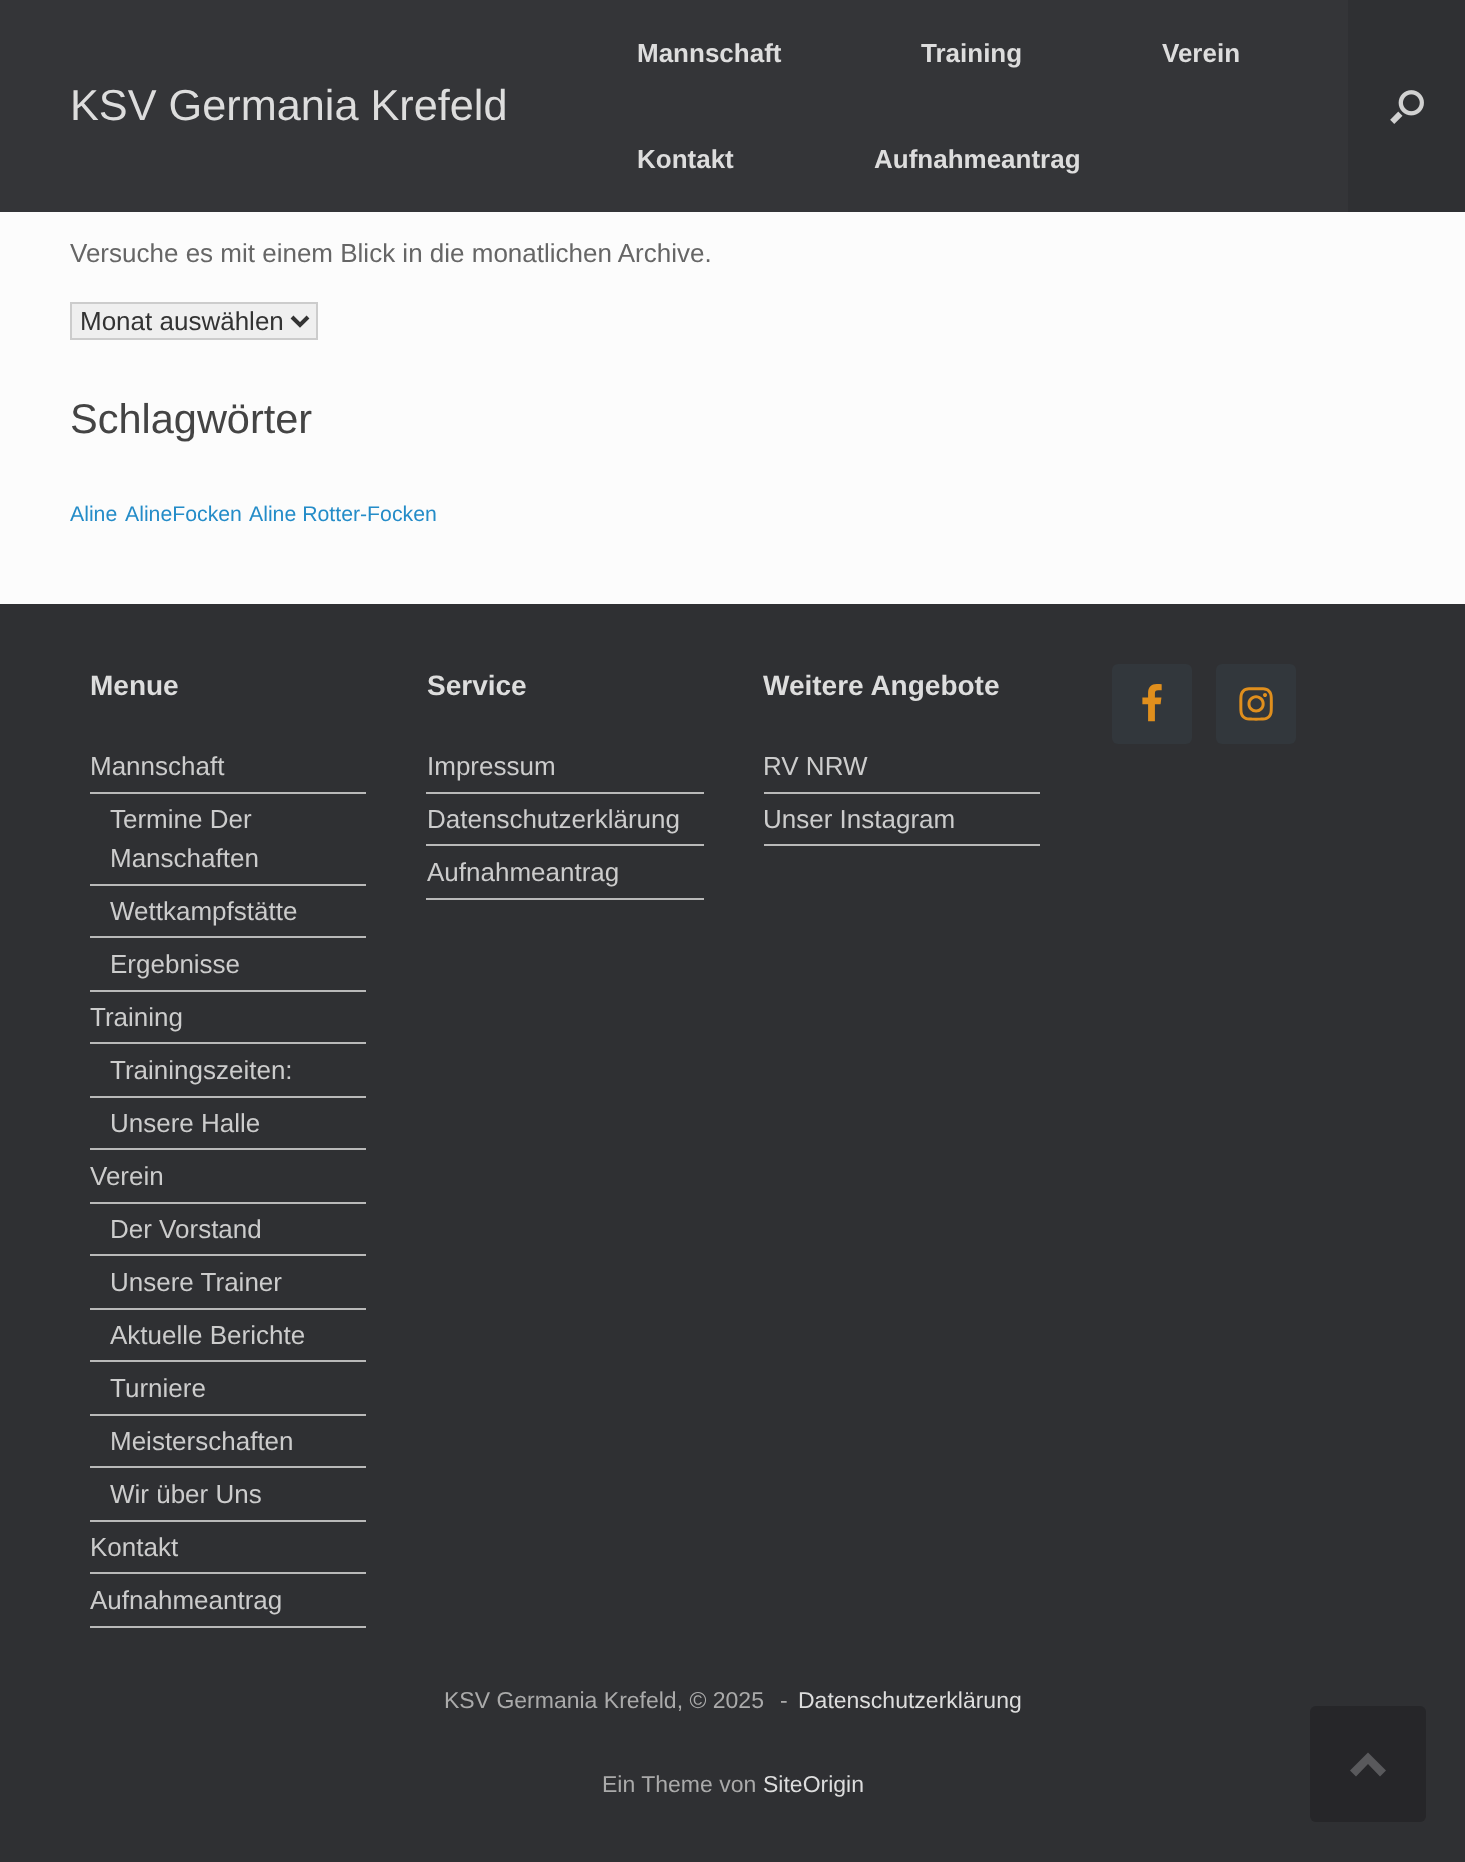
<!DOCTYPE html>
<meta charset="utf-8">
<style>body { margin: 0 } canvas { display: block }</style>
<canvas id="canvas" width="1465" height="1862"></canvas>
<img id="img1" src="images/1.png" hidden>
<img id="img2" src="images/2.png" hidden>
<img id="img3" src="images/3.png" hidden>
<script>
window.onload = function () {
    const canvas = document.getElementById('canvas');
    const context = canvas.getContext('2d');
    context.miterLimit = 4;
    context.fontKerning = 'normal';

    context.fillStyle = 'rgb(47, 48, 51)';
    context.fillRect(0, 0, 1465, 1862);
    context.fillStyle = 'rgb(52, 53, 56)';
    context.fillRect(0, 0, 1348, 212);
    context.drawImage(document.getElementById('img1'), 1390, 90, 34, 34);
    context.fillStyle = 'rgb(252, 252, 252)';
    context.fillRect(0, 212, 1465, 392);
    context.fillStyle = 'rgb(239, 239, 239)';
    context.beginPath();
    context.rect(71, 303, 246, 36);
    context.fill();
    context.strokeStyle = 'rgb(204, 204, 204)';
    context.lineWidth = 2;
    context.stroke();
    context.beginPath();
    context.moveTo(292, 317);
    context.lineTo(300, 325);
    context.lineTo(308, 317);
    context.strokeStyle = 'rgb(51, 51, 51)';
    context.lineWidth = 4;
    context.stroke();
    context.fillStyle = 'rgb(185, 185, 185)';
    context.fillRect(90, 792, 276, 2);
    context.fillRect(90, 884, 276, 2);
    context.fillRect(90, 936, 276, 2);
    context.fillRect(90, 990, 276, 2);
    context.fillRect(90, 1042, 276, 2);
    context.fillRect(90, 1096, 276, 2);
    context.fillRect(90, 1148, 276, 2);
    context.fillRect(90, 1202, 276, 2);
    context.fillRect(90, 1254, 276, 2);
    context.fillRect(90, 1308, 276, 2);
    context.fillRect(90, 1360, 276, 2);
    context.fillRect(90, 1414, 276, 2);
    context.fillRect(90, 1466, 276, 2);
    context.fillRect(90, 1520, 276, 2);
    context.fillRect(90, 1572, 276, 2);
    context.fillRect(90, 1626, 276, 2);
    context.fillRect(426, 792, 278, 2);
    context.fillRect(426, 844, 278, 2);
    context.fillRect(426, 898, 278, 2);
    context.fillRect(764, 792, 276, 2);
    context.fillRect(764, 844, 276, 2);
    context.fillStyle = 'rgb(50, 55, 60)';
    context.beginPath();
    context.roundRect(1112, 664, 80, 80, 6);
    context.fill();
    context.drawImage(document.getElementById('img2'), 1142, 684, 20, 38);
    context.beginPath();
    context.roundRect(1216, 664, 80, 80, 6);
    context.fill();
    context.drawImage(document.getElementById('img3'), 1239, 687, 34, 34);
    context.fillStyle = 'rgb(38, 38, 41)';
    context.beginPath();
    context.roundRect(1310, 1706, 116, 116, 6);
    context.fill();
    context.fillStyle = 'rgb(89, 89, 92)';
    context.beginPath();
    context.moveTo(1386, 1770.5);
    context.lineTo(1368, 1752.5);
    context.lineTo(1350, 1770.5);
    context.lineTo(1356, 1776.5);
    context.lineTo(1368, 1764);
    context.lineTo(1380, 1776.5);
    context.closePath();
    context.fill();
    context.font = '43.25px Liberation Sans';
    context.fillStyle = 'rgb(221, 221, 221)';
    context.fillText('KSV Germania Krefeld', 70, 120);
    context.font = 'bold 26px Liberation Sans';
    context.fillText('Mannschaft', 637, 62);
    context.fillText('Training', 921, 62);
    context.fillText('Verein', 1162, 62);
    context.fillText('Kontakt', 637, 168);
    context.fillText('Aufnahmeantrag', 874, 168);
    context.font = '26px Liberation Sans';
    context.fillStyle = 'rgb(102, 102, 102)';
    context.fillText('Versuche es mit einem Blick in die monatlichen Archive.', 70, 262);
    context.fillStyle = 'rgb(51, 51, 51)';
    context.fillText('Monat auswählen', 80, 330);
    context.font = '41.5px Liberation Sans';
    context.fillStyle = 'rgb(68, 68, 68)';
    context.fillText('Schlagwörter', 70, 433);
    context.font = '21.25px Liberation Sans';
    context.fillStyle = 'rgb(36, 140, 200)';
    context.fillText('Aline', 70, 521);
    context.fillText('AlineFocken', 125, 521);
    context.fillText('Aline Rotter-Focken', 249, 521);
    context.font = 'bold 28px Liberation Sans';
    context.fillStyle = 'rgb(221, 221, 221)';
    context.fillText('Menue', 90, 695);
    context.font = '26px Liberation Sans';
    context.fillStyle = 'rgb(204, 204, 204)';
    context.fillText('Mannschaft', 90, 775);
    context.fillText('Termine Der', 110, 828);
    context.fillText('Manschaften', 110, 867);
    context.fillText('Wettkampfstätte', 110, 920);
    context.fillText('Ergebnisse', 110, 973);
    context.fillText('Training', 90, 1026);
    context.fillText('Trainingszeiten:', 110, 1079);
    context.fillText('Unsere Halle', 110, 1132);
    context.fillText('Verein', 90, 1185);
    context.fillText('Der Vorstand', 110, 1238);
    context.fillText('Unsere Trainer', 110, 1291);
    context.fillText('Aktuelle Berichte', 110, 1344);
    context.fillText('Turniere', 110, 1397);
    context.fillText('Meisterschaften', 110, 1450);
    context.fillText('Wir über Uns', 110, 1503);
    context.fillText('Kontakt', 90, 1556);
    context.fillText('Aufnahmeantrag', 90, 1609);
    context.font = 'bold 28px Liberation Sans';
    context.fillStyle = 'rgb(221, 221, 221)';
    context.fillText('Service', 427, 695);
    context.font = '26px Liberation Sans';
    context.fillStyle = 'rgb(204, 204, 204)';
    context.fillText('Impressum', 427, 775);
    context.fillText('Datenschutzerklärung', 427, 828);
    context.fillText('Aufnahmeantrag', 427, 881);
    context.font = 'bold 28px Liberation Sans';
    context.fillStyle = 'rgb(221, 221, 221)';
    context.fillText('Weitere Angebote', 763, 695);
    context.font = '26px Liberation Sans';
    context.fillStyle = 'rgb(204, 204, 204)';
    context.fillText('RV NRW', 763, 775);
    context.fillText('Unser Instagram', 763, 828);
    context.font = '23px Liberation Sans';
    context.fillStyle = 'rgb(170, 170, 170)';
    context.fillText('KSV Germania Krefeld, © 2025', 444, 1708);
    context.fillText('-', 780, 1708);
    context.fillStyle = 'rgb(221, 221, 221)';
    context.fillText('Datenschutzerklärung', 798, 1708);
    context.fillStyle = 'rgb(170, 170, 170)';
    context.fillText('Ein Theme von', 602, 1792);
    context.fillStyle = 'rgb(221, 221, 221)';
    context.fillText('SiteOrigin', 763, 1792);
};
</script>
